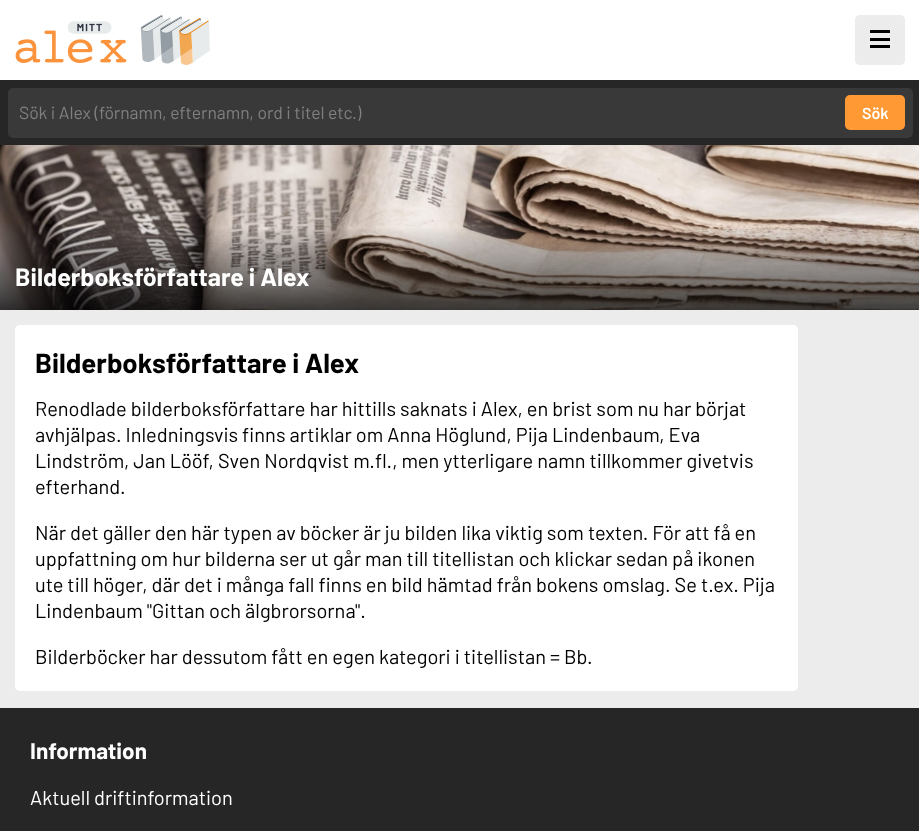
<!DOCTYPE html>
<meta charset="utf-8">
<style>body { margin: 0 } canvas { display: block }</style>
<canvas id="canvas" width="919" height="831"></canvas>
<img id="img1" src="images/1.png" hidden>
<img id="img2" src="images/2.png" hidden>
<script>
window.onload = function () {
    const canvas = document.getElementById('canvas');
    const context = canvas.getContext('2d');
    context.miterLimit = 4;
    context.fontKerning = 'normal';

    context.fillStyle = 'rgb(236, 236, 236)';
    context.fillRect(0, 0, 919, 831);
    context.fillStyle = 'rgb(255, 255, 255)';
    context.fillRect(0, 0, 919, 80);
    context.fillStyle = 'rgb(236, 236, 236)';
    context.beginPath();
    context.roundRect(855, 15, 50, 50, 5);
    context.fill();
    context.fillStyle = 'rgb(0, 0, 0)';
    context.fillRect(870, 30, 20, 3);
    context.fillRect(870, 38, 20, 3);
    context.fillRect(870, 45, 20, 3);
    context.drawImage(document.getElementById('img1'), 15, 15, 195, 50);
    context.fillStyle = 'rgb(38, 38, 38)';
    context.fillRect(0, 80, 919, 65);
    context.fillStyle = 'rgb(57, 57, 57)';
    context.beginPath();
    context.roundRect(8, 88, 905, 50, 5);
    context.fill();
    context.fillStyle = 'rgb(255, 153, 51)';
    context.beginPath();
    context.roundRect(845, 95, 60, 35, 5);
    context.fill();
    context.drawImage(document.getElementById('img2'), 0, 145, 919, 165);
    context.fillStyle = 'rgb(255, 255, 255)';
    context.beginPath();
    context.roundRect(15, 325, 783, 366, 5);
    context.fill();
    context.fillStyle = 'rgb(38, 38, 38)';
    context.fillRect(0, 708, 919, 123);
    context.font = '17.5px Barlow';
    context.fillStyle = 'rgb(128, 128, 128)';
    context.fillText('Sök i Alex (förnamn, efternamn, ord i titel etc.)', 19, 119);
    context.font = '600 16px Barlow';
    context.fillStyle = 'rgb(255, 255, 255)';
    context.fillText('Sök', 862, 119);
    context.font = 'bold 25px Barlow';
    context.fillText('Bilderboksförfattare i Alex', 15, 286);
    context.font = 'bold 27.5px Barlow';
    context.fillStyle = 'rgb(0, 0, 0)';
    context.fillText('Bilderboksförfattare i Alex', 35, 373);
    context.font = '20px Barlow';
    context.fillText('Renodlade bilderboksförfattare har hittills saknats i Alex, en brist som nu har börjat', 35, 416);
    context.fillText('avhjälpas. Inledningsvis finns artiklar om Anna Höglund, Pija Lindenbaum, Eva', 35, 442);
    context.fillText('Lindström, Jan Lööf, Sven Nordqvist m.fl., men ytterligare namn tillkommer givetvis', 35, 468);
    context.fillText('efterhand.', 35, 494);
    context.fillText('När det gäller den här typen av böcker är ju bilden lika viktig som texten. För att få en', 35, 540);
    context.fillText('uppfattning om hur bilderna ser ut går man till titellistan och klickar sedan på ikonen', 35, 566);
    context.fillText('ute till höger, där det i många fall finns en bild hämtad från bokens omslag. Se t.ex. Pija', 35, 592);
    context.fillText('Lindenbaum "Gittan och älgbrorsorna".', 35, 618);
    context.fillText('Bilderböcker har dessutom fått en egen kategori i titellistan = Bb.', 35, 664);
    context.font = 'bold 22.5px Barlow';
    context.fillStyle = 'rgb(255, 255, 255)';
    context.fillText('Information', 30, 759);
    context.font = '20px Barlow';
    context.fillText('Aktuell driftinformation', 30, 805);
};
</script>
